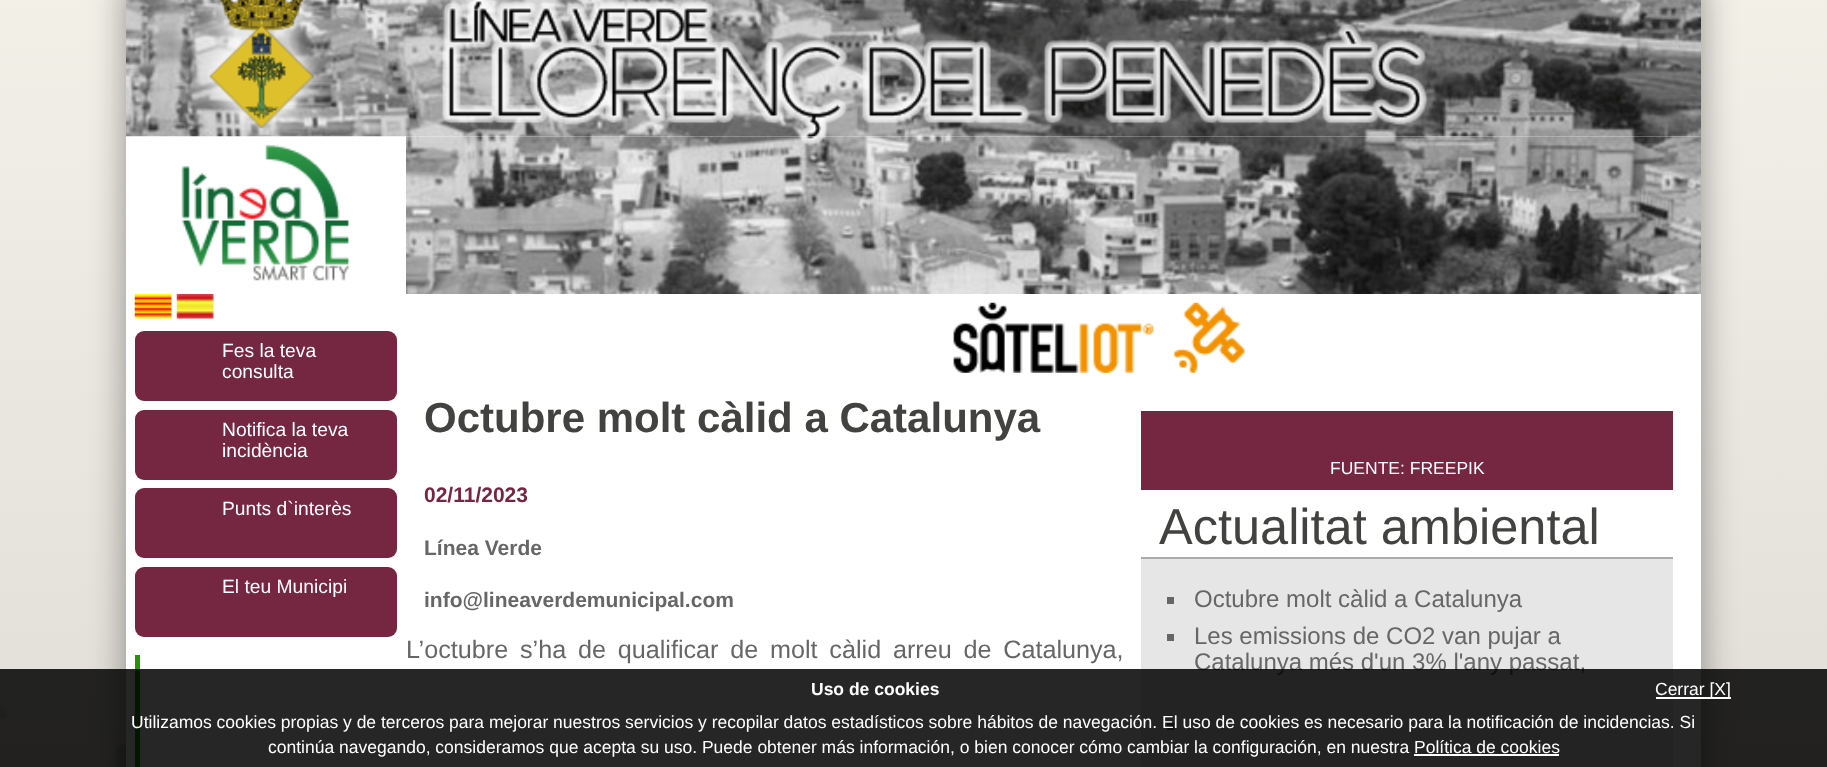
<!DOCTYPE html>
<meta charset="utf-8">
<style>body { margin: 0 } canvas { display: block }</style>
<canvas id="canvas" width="1827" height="767"></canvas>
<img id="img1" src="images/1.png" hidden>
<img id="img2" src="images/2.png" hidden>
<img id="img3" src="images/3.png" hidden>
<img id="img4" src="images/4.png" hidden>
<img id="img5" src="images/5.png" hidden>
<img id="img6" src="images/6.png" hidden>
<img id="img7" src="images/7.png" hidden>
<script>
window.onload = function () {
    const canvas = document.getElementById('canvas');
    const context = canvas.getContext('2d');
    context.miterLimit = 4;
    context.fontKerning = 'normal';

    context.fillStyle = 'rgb(255, 255, 255)';
    context.fillRect(0, 0, 1827, 767);
    context.drawImage(document.getElementById('img1'), 0, 0, 1827, 767);
    context.fillStyle = 'rgba(0, 0, 0, 0.4)';
    context.filter = 'blur(17.5px)';
    context.beginPath();
    context.rect(126, -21, 1575, 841);
    context.fill();
    context.filter = 'none';
    context.fillStyle = 'rgb(255, 255, 255)';
    context.fillRect(126, 136, 1575, 631);
    context.drawImage(document.getElementById('img2'), 126, 0, 1575, 137);
    context.drawImage(document.getElementById('img3'), 126, 136, 280, 145);
    context.drawImage(document.getElementById('img4'), 406, 136, 1295, 158);
    context.drawImage(document.getElementById('img5'), 953, 302, 292, 71);
    context.drawImage(document.getElementById('img6'), 134, 294, 38, 25);
    context.drawImage(document.getElementById('img7'), 176, 294, 38, 25);
    context.fillStyle = 'rgb(117, 38, 65)';
    context.beginPath();
    context.roundRect(135, 331, 262, 70, 9);
    context.fill();
    context.beginPath();
    context.roundRect(135, 410, 262, 70, 9);
    context.fill();
    context.beginPath();
    context.roundRect(135, 488, 262, 70, 9);
    context.fill();
    context.beginPath();
    context.roundRect(135, 567, 262, 70, 9);
    context.fill();
    context.fillStyle = 'rgb(37, 150, 3)';
    context.fillRect(135, 655, 5, 112);
    context.fillStyle = 'rgb(117, 38, 65)';
    context.fillRect(1141, 411, 532, 79);
    context.fillStyle = 'rgb(230, 230, 230)';
    context.fillRect(1141, 559, 532, 208);
    context.fillStyle = 'rgb(171, 171, 171)';
    context.fillRect(1141, 557, 532, 2);
    context.fillStyle = 'rgb(102, 102, 102)';
    context.fillRect(1167, 597, 7, 7);
    context.fillRect(1167, 634, 7, 7);
    context.fillRect(1167, 723, 7, 7);
    context.font = '19.25px Liberation Sans';
    context.fillStyle = 'rgb(255, 255, 255)';
    context.fillText('Fes la teva', 222, 357);
    context.fillText('consulta', 222, 378);
    context.fillText('Notifica la teva', 222, 436);
    context.fillText('incidència', 222, 457);
    context.fillText('Punts d`interès', 222, 515);
    context.fillText('El teu Municipi', 222, 593);
    context.font = 'bold 42px Liberation Sans';
    context.fillStyle = 'rgb(66, 66, 65)';
    context.fillText('Octubre molt càlid a Catalunya', 424, 432);
    context.font = 'bold 21px Liberation Sans';
    context.fillStyle = 'rgb(117, 38, 65)';
    context.fillText('02/11/2023', 424, 502);
    context.fillStyle = 'rgb(102, 102, 102)';
    context.fillText('Línea Verde', 424, 555);
    context.fillText('info@lineaverdemunicipal.com', 424, 607);
    context.wordSpacing = '4.75px';
    context.font = '25.2px Liberation Sans';
    context.fillText('L’octubre s’ha de qualificar de molt càlid arreu de Catalunya,', 406, 658);
    context.wordSpacing = '0px';
    context.font = '17.5px Liberation Sans';
    context.fillStyle = 'rgb(255, 255, 255)';
    context.fillText('FUENTE: FREEPIK', 1330, 474);
    context.font = '50.5px Liberation Sans';
    context.fillStyle = 'rgb(66, 66, 65)';
    context.fillText('Actualitat ambiental', 1159, 544);
    context.font = '24px Liberation Sans';
    context.fillStyle = 'rgb(102, 102, 102)';
    context.fillText('Octubre molt càlid a Catalunya', 1194, 607);
    context.fillText('Les emissions de CO2 van pujar a', 1194, 644);
    context.fillText('Catalunya més d\'un 3% l\'any passat,', 1194, 670);
    context.fillStyle = 'rgba(0, 0, 0, 0.85)';
    context.fillRect(0, 669, 1827, 98);
    context.font = 'bold 17.5px Liberation Sans';
    context.fillStyle = 'rgb(255, 255, 255)';
    context.fillText('Uso de cookies', 811, 695);
    context.fillRect(1656, 697, 75, 2);
    context.font = '17.5px Liberation Sans';
    context.fillText('Cerrar [X]', 1655, 695);
    context.fillText('Utilizamos cookies propias y de terceros para mejorar nuestros servicios y recopilar datos estadísticos sobre hábitos de navegación. El uso de cookies es necesario para la notificación de incidencias. Si', 131, 728);
    context.fillText('continúa navegando, consideramos que acepta su uso. Puede obtener más información, o bien conocer cómo cambiar la configuración, en nuestra Política de cookies', 268, 753);
    context.fillRect(1414, 754, 145, 2);
};
</script>
